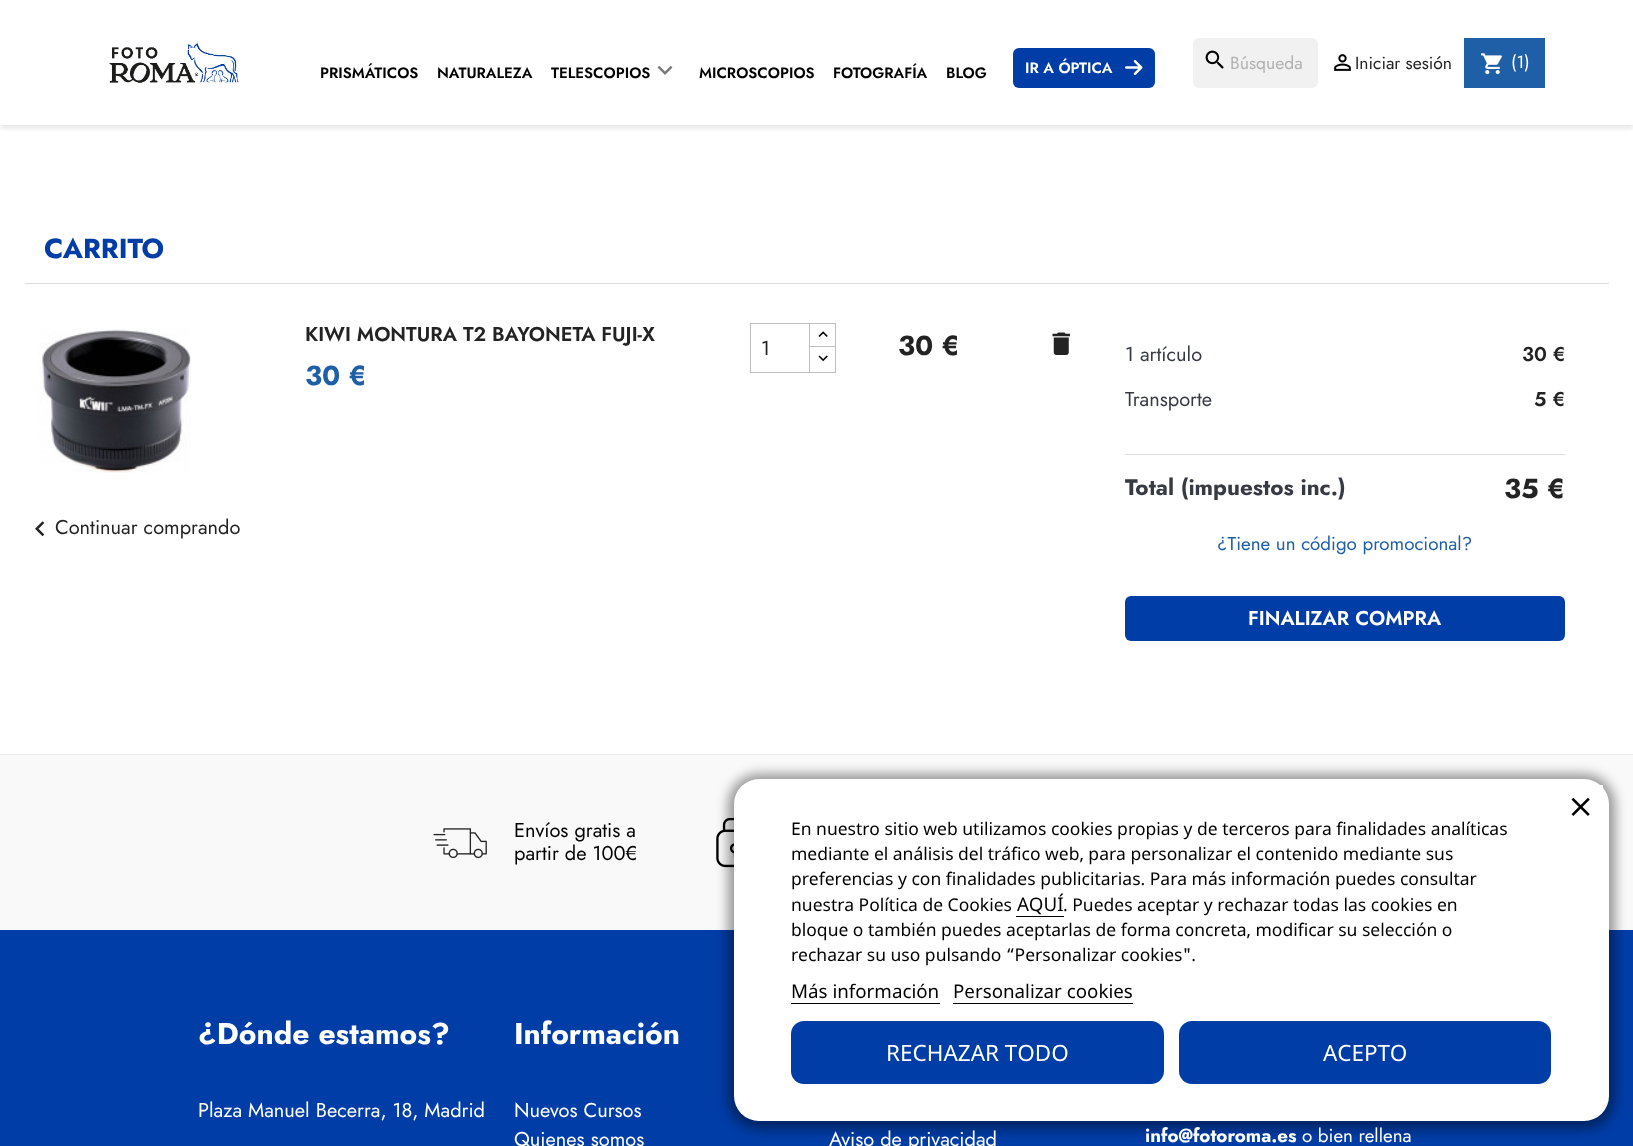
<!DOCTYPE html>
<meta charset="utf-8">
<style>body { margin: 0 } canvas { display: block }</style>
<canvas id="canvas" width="1633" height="1146"></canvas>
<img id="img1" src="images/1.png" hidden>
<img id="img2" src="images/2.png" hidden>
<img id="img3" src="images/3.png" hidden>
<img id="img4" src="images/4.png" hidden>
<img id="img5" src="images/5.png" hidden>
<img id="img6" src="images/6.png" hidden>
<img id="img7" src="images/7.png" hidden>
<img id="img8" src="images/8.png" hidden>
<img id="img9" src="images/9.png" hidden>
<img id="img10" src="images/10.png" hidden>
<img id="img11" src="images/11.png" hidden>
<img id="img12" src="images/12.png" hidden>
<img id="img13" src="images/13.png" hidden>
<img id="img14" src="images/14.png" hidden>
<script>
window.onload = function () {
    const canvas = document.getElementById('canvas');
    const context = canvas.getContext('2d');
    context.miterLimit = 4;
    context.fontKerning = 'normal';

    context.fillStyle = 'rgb(255, 255, 255)';
    context.fillRect(0, 0, 1633, 1146);
    context.save();
    context.beginPath();
    context.rect(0, 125, 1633, 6);
    context.clip();
    context.fillStyle = 'rgba(0, 0, 0, 0.11)';
    context.filter = 'blur(3px)';
    context.beginPath();
    context.rect(0, 3, 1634, 125);
    context.fill();
    context.filter = 'none';
    context.restore();
    context.drawImage(document.getElementById('img1'), 109, 41, 131, 43);
    context.drawImage(document.getElementById('img2'), 657, 65, 16, 10);
    context.fillStyle = 'rgb(0, 61, 166)';
    context.beginPath();
    context.roundRect(1013, 48, 142, 40, 6);
    context.fill();
    context.drawImage(document.getElementById('img3'), 1125, 60, 18, 15);
    context.fillStyle = 'rgb(241, 241, 241)';
    context.beginPath();
    context.roundRect(1193, 38, 125, 50, 6);
    context.fill();
    context.drawImage(document.getElementById('img4'), 1205, 50, 19, 19);
    context.drawImage(document.getElementById('img5'), 1334, 54, 17, 17);
    context.fillStyle = 'rgb(31, 95, 167)';
    context.fillRect(1464, 38, 81, 50);
    context.drawImage(document.getElementById('img6'), 1481, 53, 21, 22);
    context.fillStyle = 'rgb(221, 221, 221)';
    context.fillRect(25, 283, 1584, 1);
    context.drawImage(document.getElementById('img7'), 39, 328, 152, 145);
    context.strokeStyle = 'rgb(191, 191, 191)';
    context.strokeRect(809.5, 323.5, 26, 25);
    context.fillStyle = 'rgb(255, 255, 255)';
    context.fillRect(810, 348, 25, 1);
    context.strokeRect(809.5, 346.5, 26, 26);
    context.strokeRect(750.5, 323.5, 59, 49);
    context.drawImage(document.getElementById('img8'), 818, 331, 10, 6);
    context.drawImage(document.getElementById('img9'), 818, 355, 10, 7);
    context.drawImage(document.getElementById('img10'), 1052, 332, 18, 23);
    context.drawImage(document.getElementById('img11'), 35, 521, 10, 16);
    context.fillStyle = 'rgb(221, 221, 221)';
    context.fillRect(1125, 454, 440, 1);
    context.fillStyle = 'rgb(0, 61, 166)';
    context.beginPath();
    context.roundRect(1125, 596, 440, 45, 6);
    context.fill();
    context.fillRect(0, 930, 1633, 216);
    context.fillStyle = 'rgb(249, 249, 249)';
    context.fillRect(0, 755, 1633, 175);
    context.fillStyle = 'rgb(236, 236, 236)';
    context.fillRect(0, 754, 1633, 1);
    context.drawImage(document.getElementById('img12'), 433, 828, 54, 30);
    context.drawImage(document.getElementById('img13'), 716, 818, 18, 50);
    context.fillStyle = 'rgba(0, 0, 0, 0.4)';
    context.filter = 'blur(6px)';
    context.beginPath();
    context.roundRect(728, 774, 887, 355, 31);
    context.fill();
    context.filter = 'none';
    context.fillStyle = 'rgb(255, 255, 255)';
    context.beginPath();
    context.roundRect(734, 779, 875, 342, 25);
    context.fill();
    context.fillRect(1600, 785, 3, 3);
    context.drawImage(document.getElementById('img14'), 1571, 797, 19, 19);
    context.fillStyle = 'rgb(0, 0, 0)';
    context.fillRect(1016, 916, 48, 1);
    context.fillRect(791, 1003, 149, 1);
    context.fillRect(953, 1003, 180, 1);
    context.fillStyle = 'rgb(0, 61, 166)';
    context.beginPath();
    context.roundRect(791, 1021, 373, 63, 13);
    context.fill();
    context.beginPath();
    context.roundRect(1179, 1021, 372, 63, 13);
    context.fill();
    context.font = '600 15px Jost';
    context.fillStyle = 'rgb(0, 0, 0)';
    context.fillText('PRISMÁTICOS', 320, 78);
    context.fillText('NATURALEZA', 437, 78);
    context.fillText('TELESCOPIOS', 551, 78);
    context.fillText('MICROSCOPIOS', 699, 78);
    context.fillText('FOTOGRAFÍA', 833, 78);
    context.fillText('BLOG', 946, 78);
    context.fillStyle = 'rgb(255, 255, 255)';
    context.fillText('IR A ÓPTICA', 1025, 73);
    context.font = '17.5px Jost';
    context.fillStyle = 'rgb(177, 177, 177)';
    context.fillText('Búsqueda', 1230, 69);
    context.fillStyle = 'rgb(35, 35, 35)';
    context.fillText('Iniciar sesión', 1355, 69);
    context.fillStyle = 'rgb(255, 255, 255)';
    context.fillText('(1)', 1511, 68);
    context.font = 'bold 27.5px Jost';
    context.fillStyle = 'rgb(0, 61, 166)';
    context.fillText('CARRITO', 44, 258);
    context.font = '600 20px Jost';
    context.fillStyle = 'rgb(35, 35, 35)';
    context.fillText('KIWI MONTURA T2 BAYONETA FUJI-X', 305, 341);
    context.font = 'bold 27.5px Jost';
    context.fillStyle = 'rgb(31, 95, 167)';
    context.fillText('30 €', 305, 385);
    context.font = '20px Jost';
    context.fillStyle = 'rgb(35, 35, 35)';
    context.fillText('1', 761, 355);
    context.font = 'bold 27.5px Jost';
    context.fillText('30 €', 898, 355);
    context.font = '20px Jost';
    context.fillText('Continuar comprando', 55, 534);
    context.fillStyle = 'rgb(54, 58, 66)';
    context.fillText('1 artículo', 1125, 361);
    context.font = '600 20px Jost';
    context.fillStyle = 'rgb(35, 35, 35)';
    context.fillText('30 €', 1522, 361);
    context.font = '20px Jost';
    context.fillStyle = 'rgb(54, 58, 66)';
    context.fillText('Transporte', 1125, 406);
    context.font = '600 20px Jost';
    context.fillStyle = 'rgb(35, 35, 35)';
    context.fillText('5 €', 1534, 406);
    context.font = 'bold 22.5px Jost';
    context.fillStyle = 'rgb(54, 58, 66)';
    context.fillText('Total (impuestos inc.)', 1125, 495);
    context.font = 'bold 27.5px Jost';
    context.fillStyle = 'rgb(35, 35, 35)';
    context.fillText('35 €', 1504, 498);
    context.font = '18.75px Jost';
    context.fillStyle = 'rgb(31, 95, 167)';
    context.fillText('¿Tiene un código promocional?', 1217, 550);
    context.font = '600 20px Jost';
    context.fillStyle = 'rgb(255, 255, 255)';
    context.fillText('FINALIZAR COMPRA', 1248, 625);
    context.font = '20px Jost';
    context.fillStyle = 'rgb(0, 0, 0)';
    context.fillText('Envíos gratis a', 514, 837);
    context.fillText('partir de 100€', 514, 860);
    context.font = 'bold 30px Jost';
    context.fillStyle = 'rgb(255, 255, 255)';
    context.fillText('¿Dónde estamos?', 198, 1044);
    context.font = '20px Jost';
    context.fillText('Plaza Manuel Becerra, 18, Madrid', 198, 1117);
    context.font = 'bold 30px Jost';
    context.fillText('Información', 514, 1044);
    context.font = '20px Jost';
    context.fillText('Nuevos Cursos', 514, 1117);
    context.fillText('Quienes somos', 514, 1146);
    context.fillText('Aviso de privacidad', 829, 1146);
    context.font = 'bold 18.75px Jost';
    context.fillText('info@fotoroma.es', 1145, 1142);
    context.font = '18.75px Jost';
    context.fillText('o bien rellena', 1302, 1142);
    context.font = '17.5px Noto Sans';
    context.fillStyle = 'rgb(0, 0, 0)';
    context.fillText('En nuestro sitio web utilizamos cookies propias y de terceros para finalidades analíticas', 791, 835);
    context.fillText('mediante el análisis del tráfico web, para personalizar el contenido mediante sus', 791, 860);
    context.fillText('preferencias y con finalidades publicitarias. Para más información puedes consultar', 791, 885);
    context.fillText('nuestra Política de Cookies', 791, 911);
    context.font = '18.75px Noto Sans';
    context.fillText('AQUÍ', 1017, 911);
    context.font = '17.5px Noto Sans';
    context.fillText('. Puedes aceptar y rechazar todas las cookies en', 1063, 911);
    context.fillText('bloque o también puedes aceptarlas de forma concreta, modificar su selección o', 791, 936);
    context.fillText('rechazar su uso pulsando “Personalizar cookies".', 791, 961);
    context.font = '18.75px Noto Sans';
    context.fillText('Más información', 791, 998);
    context.fillText('Personalizar cookies', 953, 998);
    context.font = '22.5px Noto Sans';
    context.fillStyle = 'rgb(255, 255, 255)';
    context.fillText('RECHAZAR TODO', 886, 1061);
    context.fillText('ACEPTO', 1323, 1061);
};
</script>
